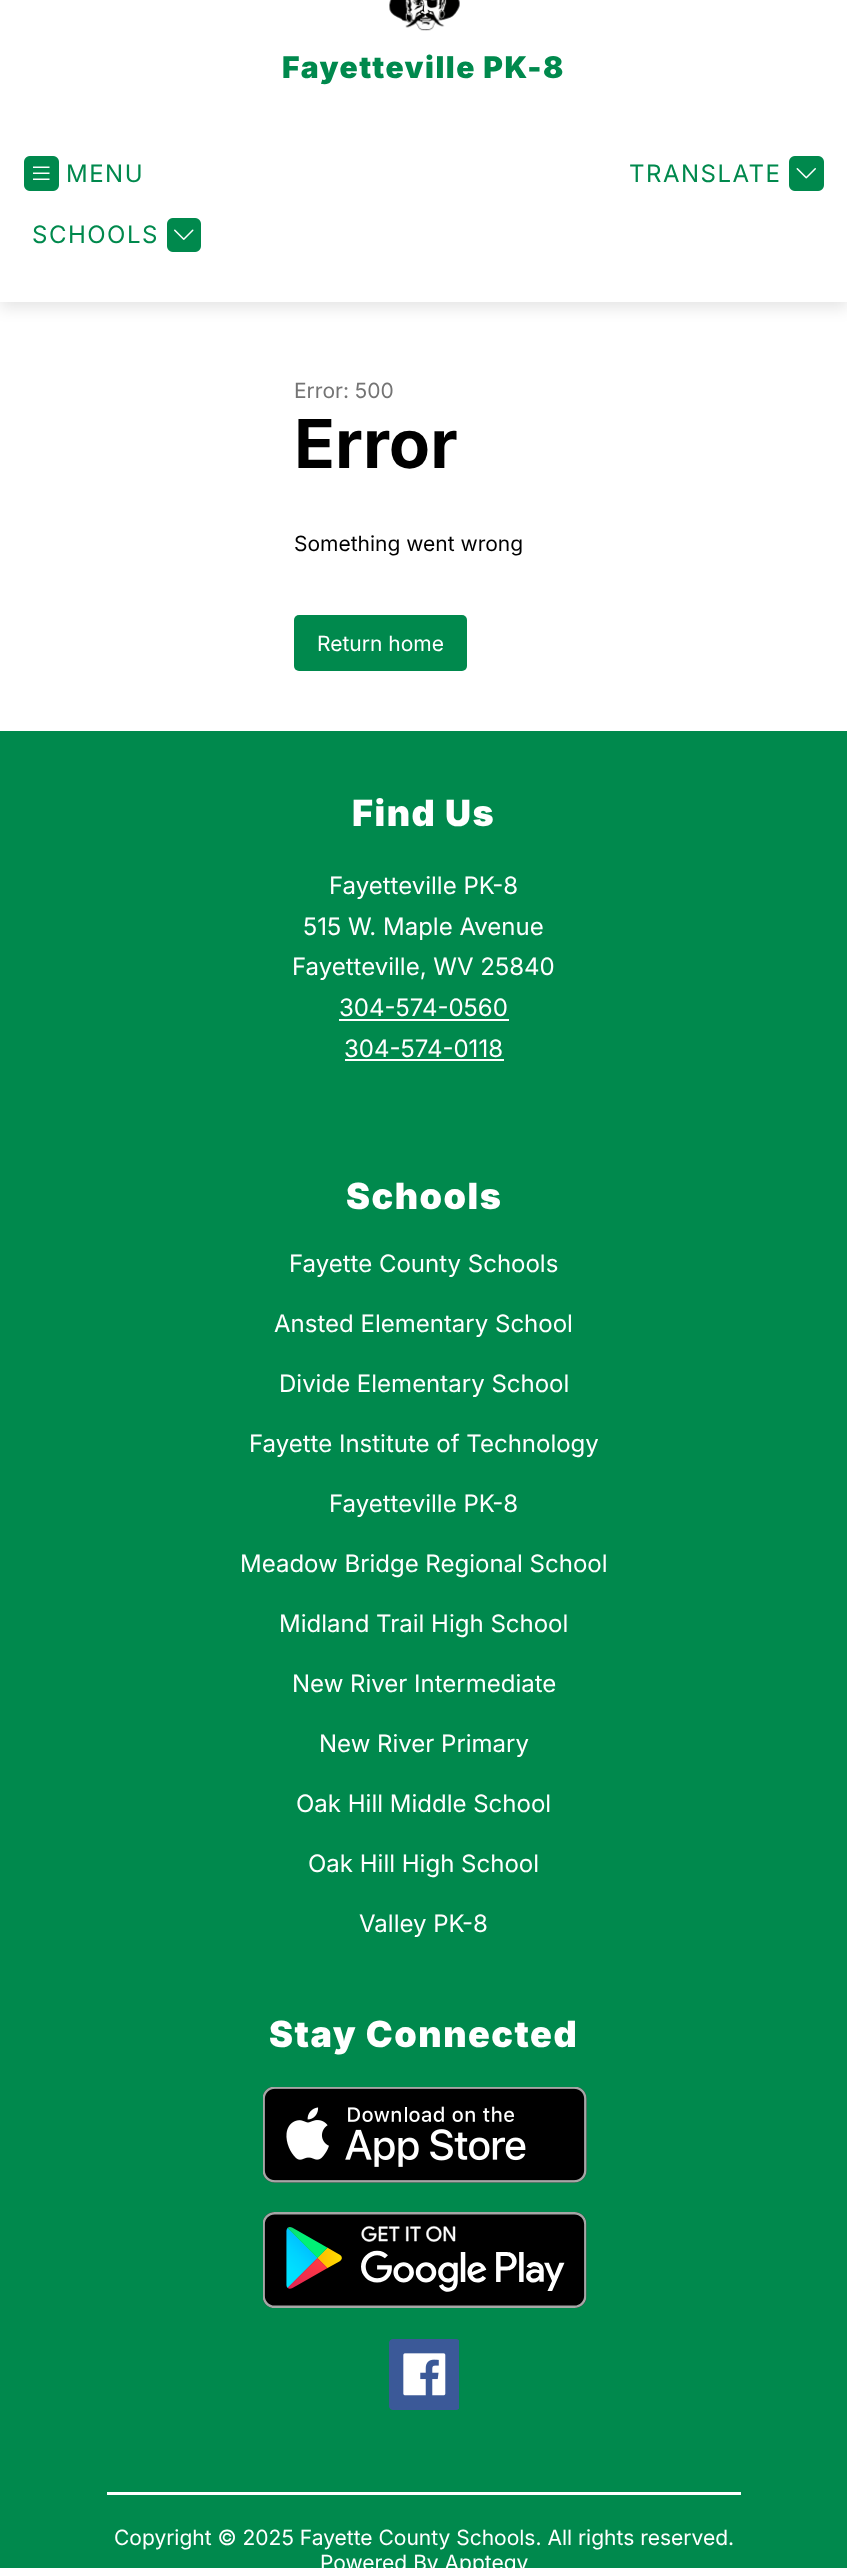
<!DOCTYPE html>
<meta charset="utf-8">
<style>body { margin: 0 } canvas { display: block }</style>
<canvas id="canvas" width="847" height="2568"></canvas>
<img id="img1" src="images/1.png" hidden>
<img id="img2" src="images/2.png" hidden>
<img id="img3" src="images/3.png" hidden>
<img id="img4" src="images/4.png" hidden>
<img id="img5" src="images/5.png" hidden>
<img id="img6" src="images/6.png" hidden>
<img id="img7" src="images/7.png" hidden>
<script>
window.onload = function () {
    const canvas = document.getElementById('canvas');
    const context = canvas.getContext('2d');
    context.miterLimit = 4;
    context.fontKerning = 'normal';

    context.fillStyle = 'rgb(255, 255, 255)';
    context.fillRect(0, 0, 847, 2568);
    context.fillStyle = 'rgba(0, 0, 0, 0.1)';
    context.filter = 'blur(7.5px)';
    context.beginPath();
    context.rect(0, -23, 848, 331);
    context.fill();
    context.filter = 'none';
    context.fillStyle = 'rgb(255, 255, 255)';
    context.fillRect(0, 0, 847, 302);
    context.drawImage(document.getElementById('img1'), 389, 0, 71, 31);
    context.drawImage(document.getElementById('img2'), 24, 156, 35, 35);
    context.drawImage(document.getElementById('img3'), 167, 218, 34, 34);
    context.drawImage(document.getElementById('img4'), 789, 156, 35, 35);
    context.fillStyle = 'rgb(0, 137, 77)';
    context.beginPath();
    context.roundRect(294, 615, 173, 56, 5);
    context.fill();
    context.fillRect(0, 731, 847, 1837);
    context.fillStyle = 'rgb(255, 255, 255)';
    context.fillRect(339, 1019, 170, 2);
    context.fillRect(345, 1059, 159, 2);
    context.drawImage(document.getElementById('img5'), 263, 2087, 324, 96);
    context.drawImage(document.getElementById('img6'), 263, 2212, 324, 96);
    context.drawImage(document.getElementById('img7'), 389, 2339, 70, 71);
    context.fillRect(107, 2492, 634, 3);
    context.letterSpacing = '1.5px';
    context.font = '900 30px Inter';
    context.fillStyle = 'rgb(0, 137, 77)';
    context.fillText('Fayetteville PK-8', 282, 78);
    context.font = '24px Inter';
    context.fillText('MENU', 66, 182);
    context.fillText('SCHOOLS', 32, 243);
    context.fillText('TRANSLATE', 629, 182);
    context.letterSpacing = '0px';
    context.font = '21px Inter';
    context.fillStyle = 'rgb(116, 116, 116)';
    context.fillText('Error: 500', 294, 398);
    context.font = 'bold 67.5px Inter';
    context.fillStyle = 'rgb(0, 0, 0)';
    context.fillText('Error', 294, 468);
    context.font = '21px Inter';
    context.fillText('Something went wrong', 294, 551);
    context.fillStyle = 'rgb(255, 255, 255)';
    context.fillText('Return home', 317, 651);
    context.letterSpacing = '1.5px';
    context.font = '900 36px Inter';
    context.fillText('Find Us', 352, 826);
    context.letterSpacing = '0px';
    context.font = '24px Inter';
    context.fillText('Fayetteville PK-8', 329, 894);
    context.fillText('515 W. Maple Avenue', 303, 935);
    context.fillText('Fayetteville, WV 25840', 292, 975);
    context.fillText('304-574-0560', 339, 1016);
    context.fillText('304-574-0118', 344, 1057);
    context.letterSpacing = '1.5px';
    context.font = '900 36px Inter';
    context.fillText('Schools', 346, 1209);
    context.letterSpacing = '0px';
    context.font = '24px Inter';
    context.fillText('Fayette County Schools', 289, 1272);
    context.fillText('Ansted Elementary School', 274, 1332);
    context.fillText('Divide Elementary School', 279, 1392);
    context.fillText('Fayette Institute of Technology', 249, 1452);
    context.fillText('Fayetteville PK-8', 329, 1512);
    context.fillText('Meadow Bridge Regional School', 240, 1572);
    context.fillText('Midland Trail High School', 279, 1632);
    context.fillText('New River Intermediate', 292, 1692);
    context.fillText('New River Primary', 319, 1752);
    context.fillText('Oak Hill Middle School', 296, 1812);
    context.fillText('Oak Hill High School', 308, 1872);
    context.fillText('Valley PK-8', 359, 1932);
    context.letterSpacing = '1.5px';
    context.font = '900 36px Inter';
    context.fillText('Stay Connected', 269, 2047);
    context.letterSpacing = '0px';
    context.font = '21px Inter';
    context.fillText('Copyright © 2025 Fayette County Schools. All rights reserved.', 114, 2545);
    context.fillText('Powered By Apptegy', 320, 2570);
};
</script>
